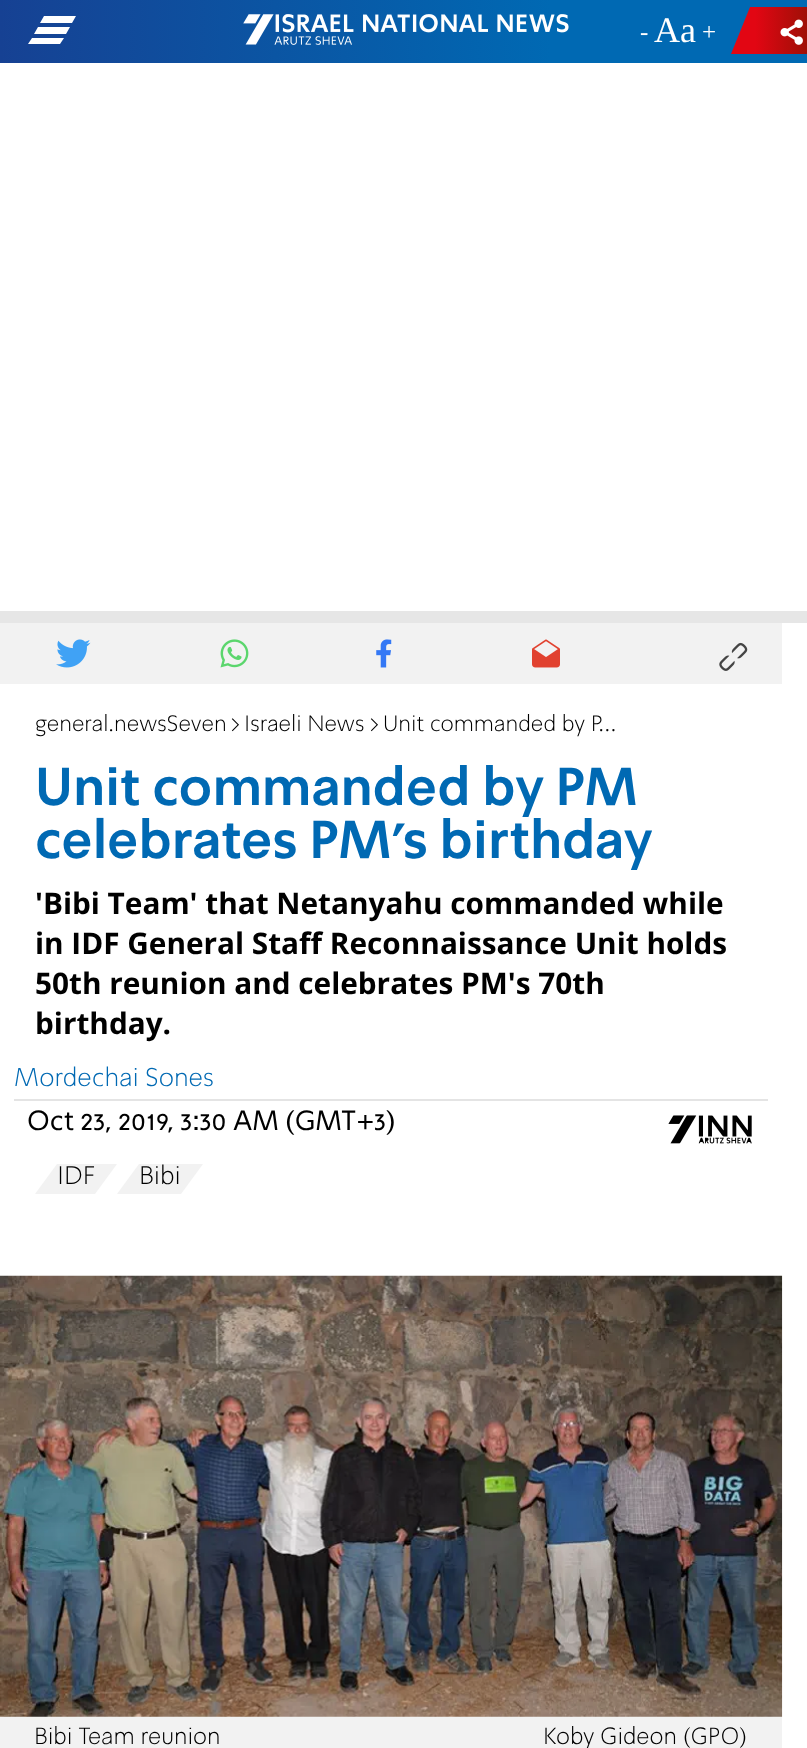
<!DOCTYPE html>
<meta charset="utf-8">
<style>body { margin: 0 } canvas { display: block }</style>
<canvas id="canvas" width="807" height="1748"></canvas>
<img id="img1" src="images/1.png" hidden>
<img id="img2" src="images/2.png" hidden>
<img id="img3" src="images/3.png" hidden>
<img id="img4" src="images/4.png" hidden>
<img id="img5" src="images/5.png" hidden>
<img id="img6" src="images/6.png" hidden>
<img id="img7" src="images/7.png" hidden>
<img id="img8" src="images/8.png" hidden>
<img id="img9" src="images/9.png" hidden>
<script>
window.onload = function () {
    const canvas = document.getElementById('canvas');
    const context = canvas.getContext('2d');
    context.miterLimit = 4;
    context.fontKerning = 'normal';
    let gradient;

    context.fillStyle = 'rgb(255, 255, 255)';
    context.fillRect(0, 0, 807, 1748);
    gradient = context.createLinearGradient(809, 31, 0, 32);
    gradient.addColorStop(0.32, 'rgb(0, 105, 179)');
    gradient.addColorStop(1, 'rgb(22, 65, 147)');
    context.fillStyle = gradient;
    context.fillRect(0, 0, 807, 63);
    context.fillStyle = 'rgb(255, 255, 255)';
    context.beginPath();
    context.moveTo(38, 27);
    context.lineTo(34, 34);
    context.lineTo(66, 34);
    context.lineTo(70, 27);
    context.closePath();
    context.moveTo(44, 16);
    context.lineTo(40, 23);
    context.lineTo(72, 23);
    context.lineTo(76, 16);
    context.closePath();
    context.moveTo(60, 44);
    context.lineTo(64, 38);
    context.lineTo(32, 38);
    context.lineTo(28, 44);
    context.closePath();
    context.fill();
    context.drawImage(document.getElementById('img1'), 243, 14, 326, 31);
    gradient = context.createLinearGradient(730, 31, 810, 31);
    gradient.addColorStop(0.32, 'rgb(226, 6, 19)');
    gradient.addColorStop(1, 'rgb(155, 16, 6)');
    context.fillStyle = gradient;
    context.beginPath();
    context.moveTo(750, 7);
    context.lineTo(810, 7);
    context.lineTo(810, 54);
    context.lineTo(731, 54);
    context.closePath();
    context.fill();
    context.drawImage(document.getElementById('img2'), 780, 19, 23, 26);
    context.fillStyle = 'rgb(230, 230, 230)';
    context.fillRect(0, 611, 807, 12);
    context.fillStyle = 'rgb(242, 242, 242)';
    context.fillRect(0, 623, 782, 61);
    context.drawImage(document.getElementById('img3'), 56, 639, 35, 29);
    context.drawImage(document.getElementById('img4'), 220, 639, 29, 29);
    context.drawImage(document.getElementById('img5'), 376, 639, 16, 29);
    context.drawImage(document.getElementById('img6'), 532, 639, 28, 29);
    context.drawImage(document.getElementById('img7'), 719, 642, 29, 29);
    context.fillStyle = 'rgb(228, 228, 228)';
    context.fillRect(14, 1099, 754, 2);
    context.drawImage(document.getElementById('img8'), 668, 1115, 84, 29);
    context.fillStyle = 'rgb(242, 242, 242)';
    context.beginPath();
    context.moveTo(117, 1164);
    context.lineTo(95, 1194);
    context.lineTo(35, 1194);
    context.lineTo(57, 1164);
    context.closePath();
    context.fill();
    context.beginPath();
    context.moveTo(203, 1164);
    context.lineTo(181, 1194);
    context.lineTo(117, 1194);
    context.lineTo(139, 1164);
    context.closePath();
    context.fill();
    context.fillRect(0, 1716, 782, 32);
    context.drawImage(document.getElementById('img9'), 0, 1275, 783, 442);
    context.font = '25px Liberation Serif';
    context.fillStyle = 'rgb(255, 255, 255)';
    context.fillText('-', 640, 40);
    context.font = '36px Liberation Serif';
    context.fillText('Aa', 654, 42);
    context.font = '25px Liberation Serif';
    context.fillText('+', 702, 40);
    context.font = '300 22.75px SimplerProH';
    context.fillStyle = 'rgb(0, 0, 0)';
    context.fillText('general.newsSeven', 35, 731);
    context.fillText('>', 230, 731);
    context.fillText('Israeli News', 244, 731);
    context.fillText('>', 369, 731);
    context.fillText('Unit commanded by P…', 383, 731);
    context.font = 'bold 52.5px SimplerProH';
    context.fillStyle = 'rgb(0, 105, 179)';
    context.fillText('Unit commanded by PM', 35, 805);
    context.fillText('celebrates PM\'s birthday', 35, 858);
    context.font = 'bold 29.75px Open Sans';
    context.fillStyle = 'rgb(0, 0, 0)';
    context.fillText('\'Bibi Team\' that Netanyahu commanded while', 35, 914);
    context.fillText('in IDF General Staff Reconnaissance Unit holds', 35, 954);
    context.fillText('50th reunion and celebrates PM\'s 70th', 35, 994);
    context.fillText('birthday.', 35, 1034);
    context.font = '300 26.25px SimplerProH';
    context.fillStyle = 'rgb(0, 105, 179)';
    context.fillText('Mordechai Sones', 14, 1086);
    context.font = '28px SimplerProH';
    context.fillStyle = 'rgb(0, 0, 0)';
    context.fillText('Oct 23, 2019, 3:30 AM (GMT+3)', 27, 1130);
    context.font = '300 26px SimplerProH';
    context.fillText('IDF', 57, 1184);
    context.fillText('Bibi', 139, 1184);
    context.font = '300 24px SimplerProH';
    context.fillText('Bibi Team reunion', 34, 1744);
    context.fillText('Koby Gideon (GPO)', 543, 1744);
};
</script>
